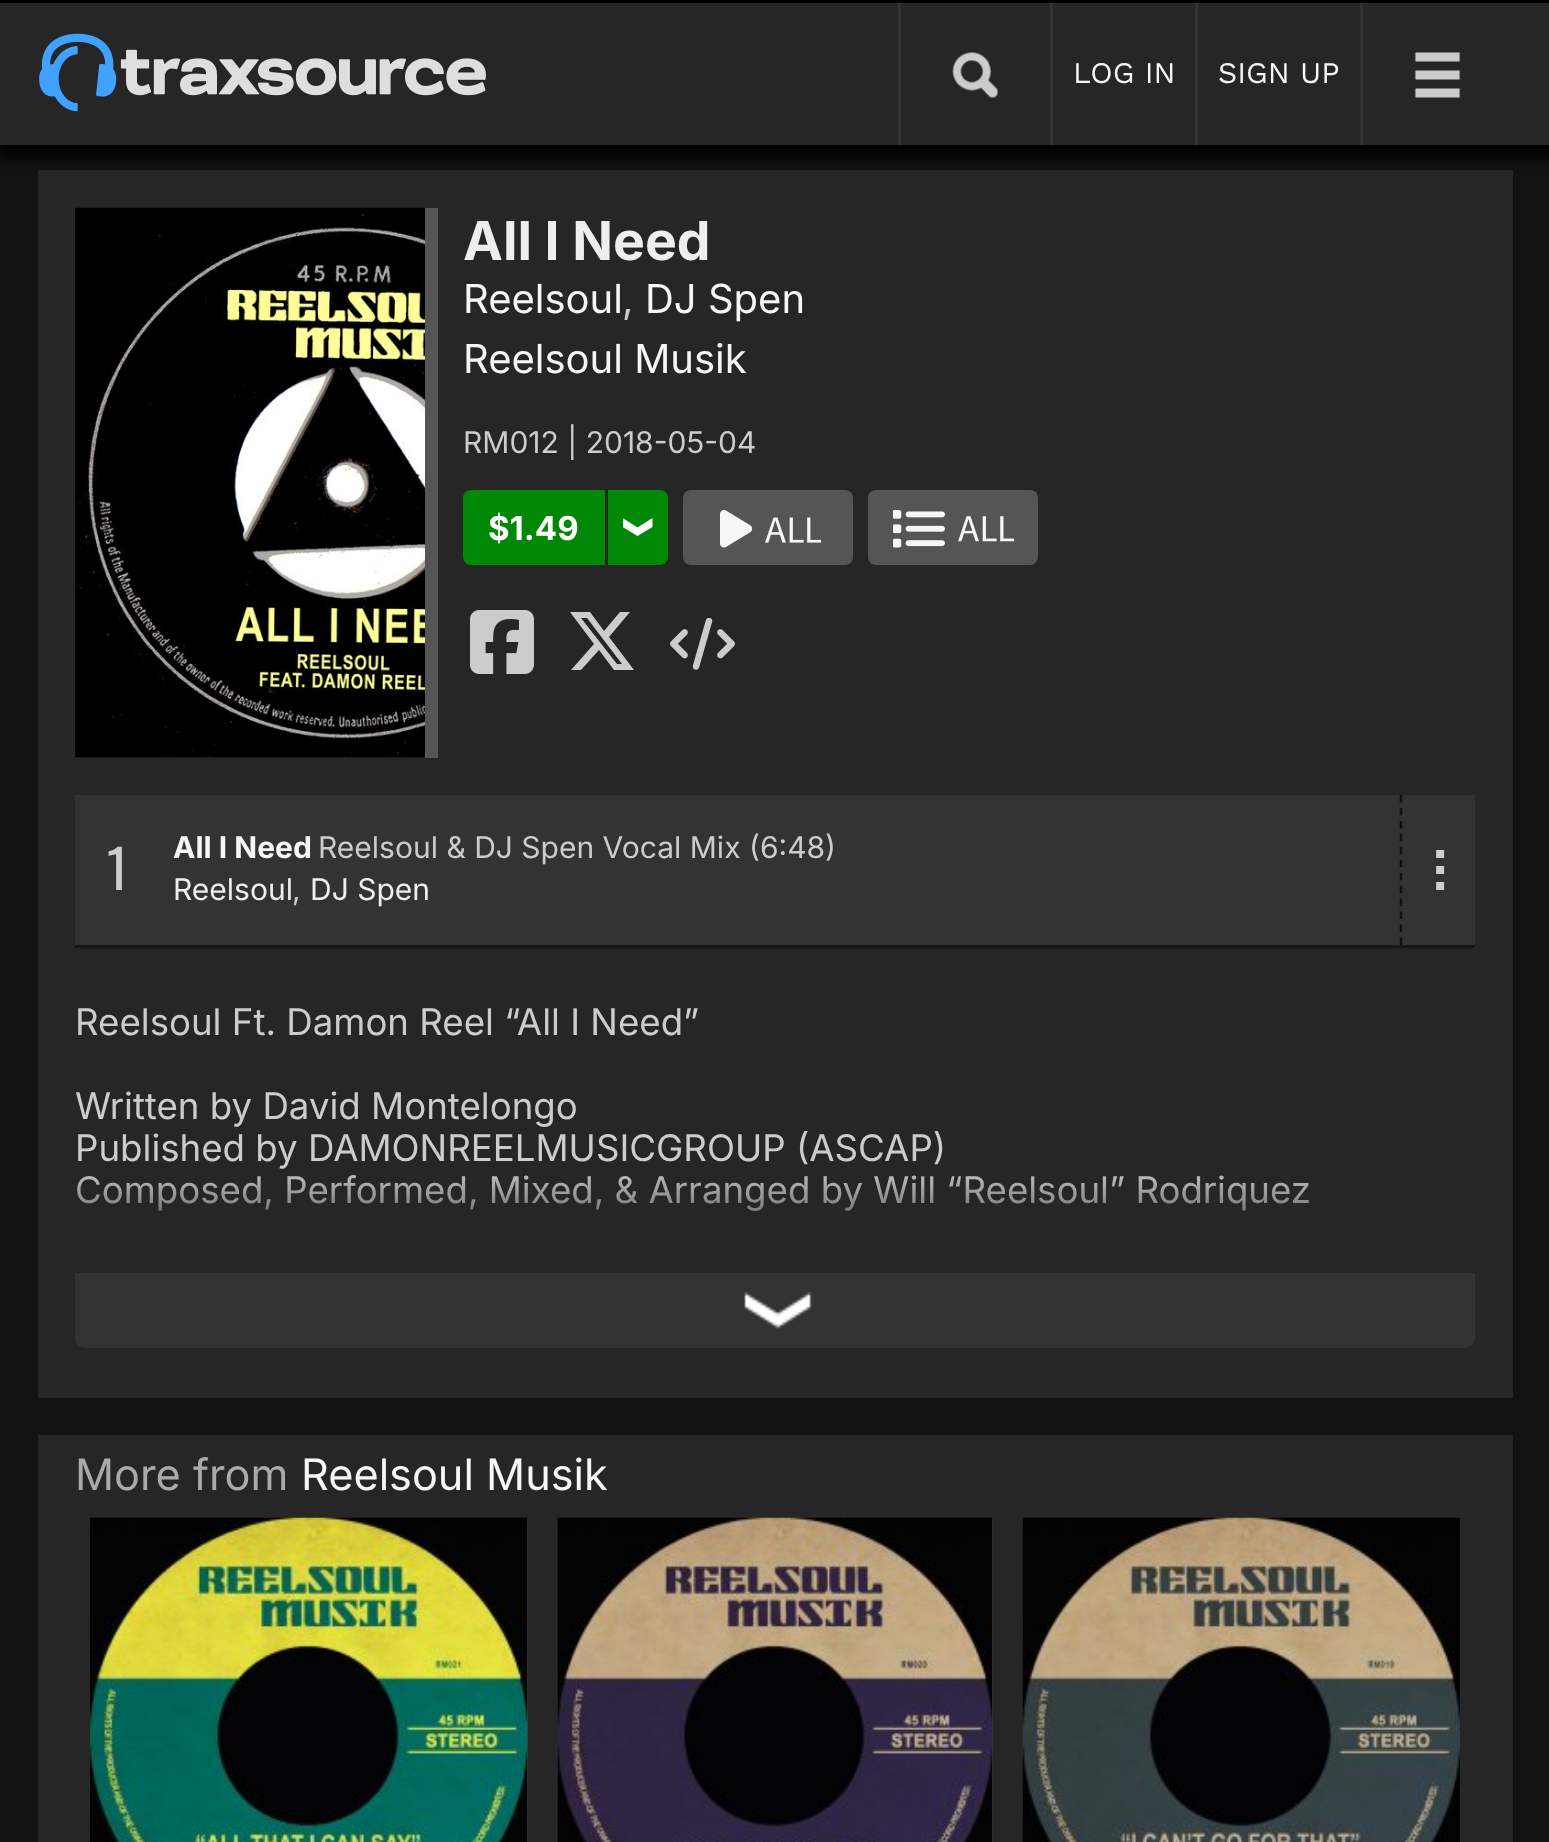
<!DOCTYPE html>
<meta charset="utf-8">
<style>body { margin: 0 } canvas { display: block }</style>
<canvas id="canvas" width="1549" height="1842"></canvas>
<img id="img1" src="images/1.png" hidden>
<img id="img2" src="images/2.png" hidden>
<img id="img3" src="images/3.png" hidden>
<img id="img4" src="images/4.png" hidden>
<img id="img5" src="images/5.png" hidden>
<img id="img6" src="images/6.png" hidden>
<img id="img7" src="images/7.png" hidden>
<img id="img8" src="images/8.png" hidden>
<img id="img9" src="images/9.png" hidden>
<img id="img10" src="images/10.png" hidden>
<img id="img11" src="images/11.png" hidden>
<img id="img12" src="images/12.png" hidden>
<img id="img13" src="images/13.png" hidden>
<script>
window.onload = function () {
    const canvas = document.getElementById('canvas');
    const context = canvas.getContext('2d');
    context.miterLimit = 4;
    context.fontKerning = 'normal';
    let gradient;

    context.fillStyle = 'rgb(18, 18, 18)';
    context.fillRect(0, 0, 1549, 1842);
    context.fillStyle = 'rgb(38, 38, 38)';
    context.fillRect(38, 170, 1475, 1228);
    context.fillStyle = 'rgb(0, 0, 0)';
    context.filter = 'blur(6px)';
    context.beginPath();
    context.rect(-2, 8, 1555, 150);
    context.fill();
    context.filter = 'none';
    context.fillStyle = 'rgb(38, 38, 38)';
    context.fillRect(0, 3, 1549, 142);
    context.fillStyle = 'rgb(51, 51, 51)';
    context.fillRect(898, 0, 3, 145);
    context.fillRect(1050, 0, 3, 145);
    context.fillRect(1195, 0, 3, 145);
    context.fillRect(1360, 0, 3, 145);
    context.fillStyle = 'rgb(0, 0, 0)';
    context.fillRect(0, 0, 1549, 3);
    context.drawImage(document.getElementById('img1'), 39, 33, 447, 79);
    context.drawImage(document.getElementById('img2'), 952, 52, 46, 46);
    context.drawImage(document.getElementById('img3'), 1414, 52, 47, 46);
    context.fillStyle = 'rgb(85, 85, 85)';
    context.fillRect(425, 208, 13, 550);
    context.drawImage(document.getElementById('img4'), 75, 207, 350, 551);
    context.fillStyle = 'rgb(0, 136, 6)';
    context.beginPath();
    context.roundRect(463, 490, 142, 75, [8, 0, 0, 8]);
    context.fill();
    context.beginPath();
    context.roundRect(608, 490, 60, 75, [0, 8, 8, 0]);
    context.fill();
    context.save();
    context.beginPath();
    context.rect(623, 518, 30, 20);
    context.clip();
    context.fillStyle = 'rgb(255, 255, 255)';
    context.beginPath();
    context.moveTo(622.5, 518);
    context.lineTo(622.5, 527);
    context.lineTo(637.5, 536);
    context.lineTo(652.5, 527);
    context.lineTo(652.5, 518);
    context.lineTo(637.5, 527.5);
    context.closePath();
    context.fill();
    context.restore();
    context.fillStyle = 'rgb(85, 85, 85)';
    context.beginPath();
    context.roundRect(683, 490, 170, 75, 8);
    context.fill();
    context.drawImage(document.getElementById('img5'), 720, 510, 102, 38);
    context.beginPath();
    context.roundRect(868, 490, 170, 75, 8);
    context.fill();
    context.drawImage(document.getElementById('img6'), 893, 510, 122, 38);
    context.drawImage(document.getElementById('img7'), 470, 610, 64, 64);
    context.fillStyle = 'rgb(204, 204, 204)';
    context.beginPath();
    context.moveTo(620, 612);
    context.lineTo(630, 612);
    context.lineTo(609, 637);
    context.lineTo(634, 670);
    context.lineTo(614, 670);
    context.lineTo(599, 650);
    context.lineTo(581, 670);
    context.lineTo(571, 670);
    context.lineTo(594, 644);
    context.lineTo(570, 612);
    context.lineTo(590, 612);
    context.lineTo(604, 631);
    context.closePath();
    context.moveTo(617, 664);
    context.lineTo(622, 664);
    context.lineTo(587, 618);
    context.lineTo(581, 618);
    context.closePath();
    context.fill();
    context.drawImage(document.getElementById('img8'), 670, 618, 65, 52);
    context.fillStyle = 'rgb(51, 51, 51)';
    context.fillRect(75, 795, 1400, 150);
    context.fillStyle = 'rgb(22, 22, 22)';
    context.fillRect(75, 945, 1400, 3);
    context.beginPath();
    context.moveTo(1401, 795);
    context.lineTo(1401, 945);
    context.strokeStyle = 'rgb(17, 17, 17)';
    context.lineWidth = 2.5;
    context.setLineDash([7.5, 5.45]);
    context.stroke();
    context.drawImage(document.getElementById('img9'), 1436, 850, 9, 40);
    context.fillStyle = 'rgb(51, 51, 51)';
    context.beginPath();
    context.roundRect(75, 1273, 1400, 75, [0, 0, 10, 10]);
    context.fill();
    context.drawImage(document.getElementById('img10'), 744, 1292, 69, 37);
    context.fillStyle = 'rgb(38, 38, 38)';
    context.fillRect(38, 1435, 1475, 407);
    context.fillStyle = 'rgb(58, 58, 58)';
    context.fillRect(527, 1518, 1, 324);
    context.drawImage(document.getElementById('img11'), 90, 1517, 438, 325);
    context.fillRect(992, 1518, 1, 324);
    context.drawImage(document.getElementById('img12'), 557, 1517, 436, 325);
    context.drawImage(document.getElementById('img13'), 1022, 1517, 438, 325);
    context.font = '30px Work Sans';
    context.fillStyle = 'rgb(246, 246, 246)';
    context.fillText('LOG IN', 1073, 83);
    context.fillText('SIGN UP', 1218, 83);
    context.font = 'bold 53.5px Inter';
    context.fillStyle = 'rgb(238, 238, 238)';
    context.fillText('All I Need', 463, 260);
    context.font = '40px Inter';
    context.fillStyle = 'rgb(246, 246, 246)';
    context.fillText('Reelsoul', 463, 313);
    context.fillStyle = 'rgb(204, 204, 204)';
    context.fillText(',', 622, 313);
    context.fillStyle = 'rgb(246, 246, 246)';
    context.fillText('DJ Spen', 645, 313);
    context.fillText('Reelsoul Musik', 463, 373);
    context.font = '30px Inter';
    context.fillStyle = 'rgb(204, 204, 204)';
    context.fillText('RM012 | 2018-05-04', 463, 453);
    context.font = 'bold 33px Inter';
    context.fillStyle = 'rgb(255, 255, 255)';
    context.fillText('$1.49', 488, 540);
    context.letterSpacing = '-2px';
    context.font = '53.5px Oswald';
    context.fillStyle = 'rgb(204, 204, 204)';
    context.fillText('1', 107, 890);
    context.letterSpacing = '0px';
    context.font = 'bold 30px Inter';
    context.fillStyle = 'rgb(246, 246, 246)';
    context.fillText('All I Need', 173, 858);
    context.font = '30px Inter';
    context.fillStyle = 'rgb(204, 204, 204)';
    context.fillText('Reelsoul & DJ Spen Vocal Mix (6:48)', 318, 858);
    context.fillStyle = 'rgb(238, 238, 238)';
    context.fillText('Reelsoul', 173, 900);
    context.fillStyle = 'rgb(204, 204, 204)';
    context.fillText(',', 292, 900);
    context.fillStyle = 'rgb(238, 238, 238)';
    context.fillText('DJ Spen', 310, 900);
    context.font = '36.65px Inter';
    context.fillStyle = 'rgb(204, 204, 204)';
    context.fillText('Reelsoul Ft. Damon Reel “All I Need”', 75, 1035);
    context.fillText('Written by David Montelongo', 75, 1119);
    context.fillText('Published by DAMONREELMUSICGROUP (ASCAP)', 75, 1161);
    context.fillText('Composed, Performed, Mixed, & Arranged by Will “Reelsoul” Rodriquez', 75, 1203);
    gradient = context.createLinearGradient(775, 1273, 775, 1003);
    gradient.addColorStop(0.05, 'rgb(38, 38, 38)');
    gradient.addColorStop(0.4, 'rgba(38, 38, 38, 0)');
    context.fillStyle = gradient;
    context.fillRect(77, 1167, 1232, 44);
    context.font = '43.25px Inter';
    context.fillStyle = 'rgb(170, 170, 170)';
    context.fillText('More from', 75, 1490);
    context.fillStyle = 'rgb(246, 246, 246)';
    context.fillText('Reelsoul Musik', 301, 1490);
};
</script>
